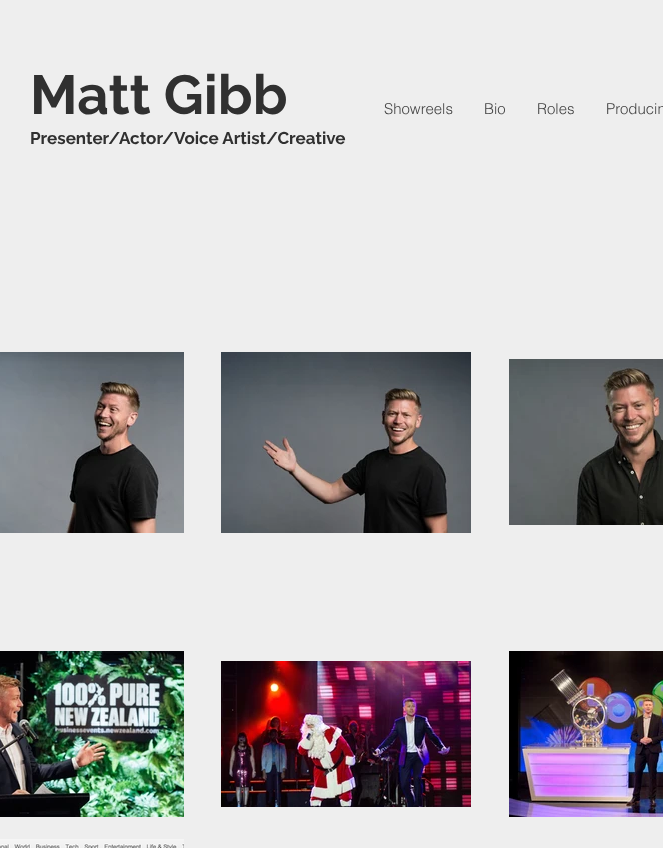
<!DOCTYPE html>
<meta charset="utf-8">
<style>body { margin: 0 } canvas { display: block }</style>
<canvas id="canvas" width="663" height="848"></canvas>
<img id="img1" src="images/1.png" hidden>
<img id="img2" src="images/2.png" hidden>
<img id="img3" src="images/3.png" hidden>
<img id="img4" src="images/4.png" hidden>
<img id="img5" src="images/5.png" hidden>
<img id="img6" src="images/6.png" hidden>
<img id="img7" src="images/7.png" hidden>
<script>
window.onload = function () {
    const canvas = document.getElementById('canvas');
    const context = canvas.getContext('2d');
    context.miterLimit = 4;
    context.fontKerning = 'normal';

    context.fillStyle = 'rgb(238, 238, 238)';
    context.fillRect(0, 0, 663, 848);
    context.drawImage(document.getElementById('img1'), 0, 352, 184, 181);
    context.drawImage(document.getElementById('img2'), 221, 352, 250, 181);
    context.drawImage(document.getElementById('img3'), 509, 359, 154, 166);
    context.drawImage(document.getElementById('img4'), 0, 651, 184, 166);
    context.drawImage(document.getElementById('img5'), 221, 661, 250, 146);
    context.drawImage(document.getElementById('img6'), 509, 651, 154, 166);
    context.drawImage(document.getElementById('img7'), 0, 839, 184, 9);
    context.font = 'bold 55px Raleway';
    context.fillStyle = 'rgb(48, 48, 48)';
    context.fillText('Matt Gibb', 30, 114);
    context.font = 'bold 17px Raleway';
    context.fillText('Presenter/Actor/Voice Artist/Creative', 30, 144);
    context.font = '300 15px helvetica';
    context.fillStyle = 'rgb(68, 68, 68)';
    context.fillText('Showreels', 384, 114);
    context.fillText('Bio', 484, 114);
    context.fillText('Roles', 537, 114);
    context.fillText('Producin', 606, 114);
};
</script>
